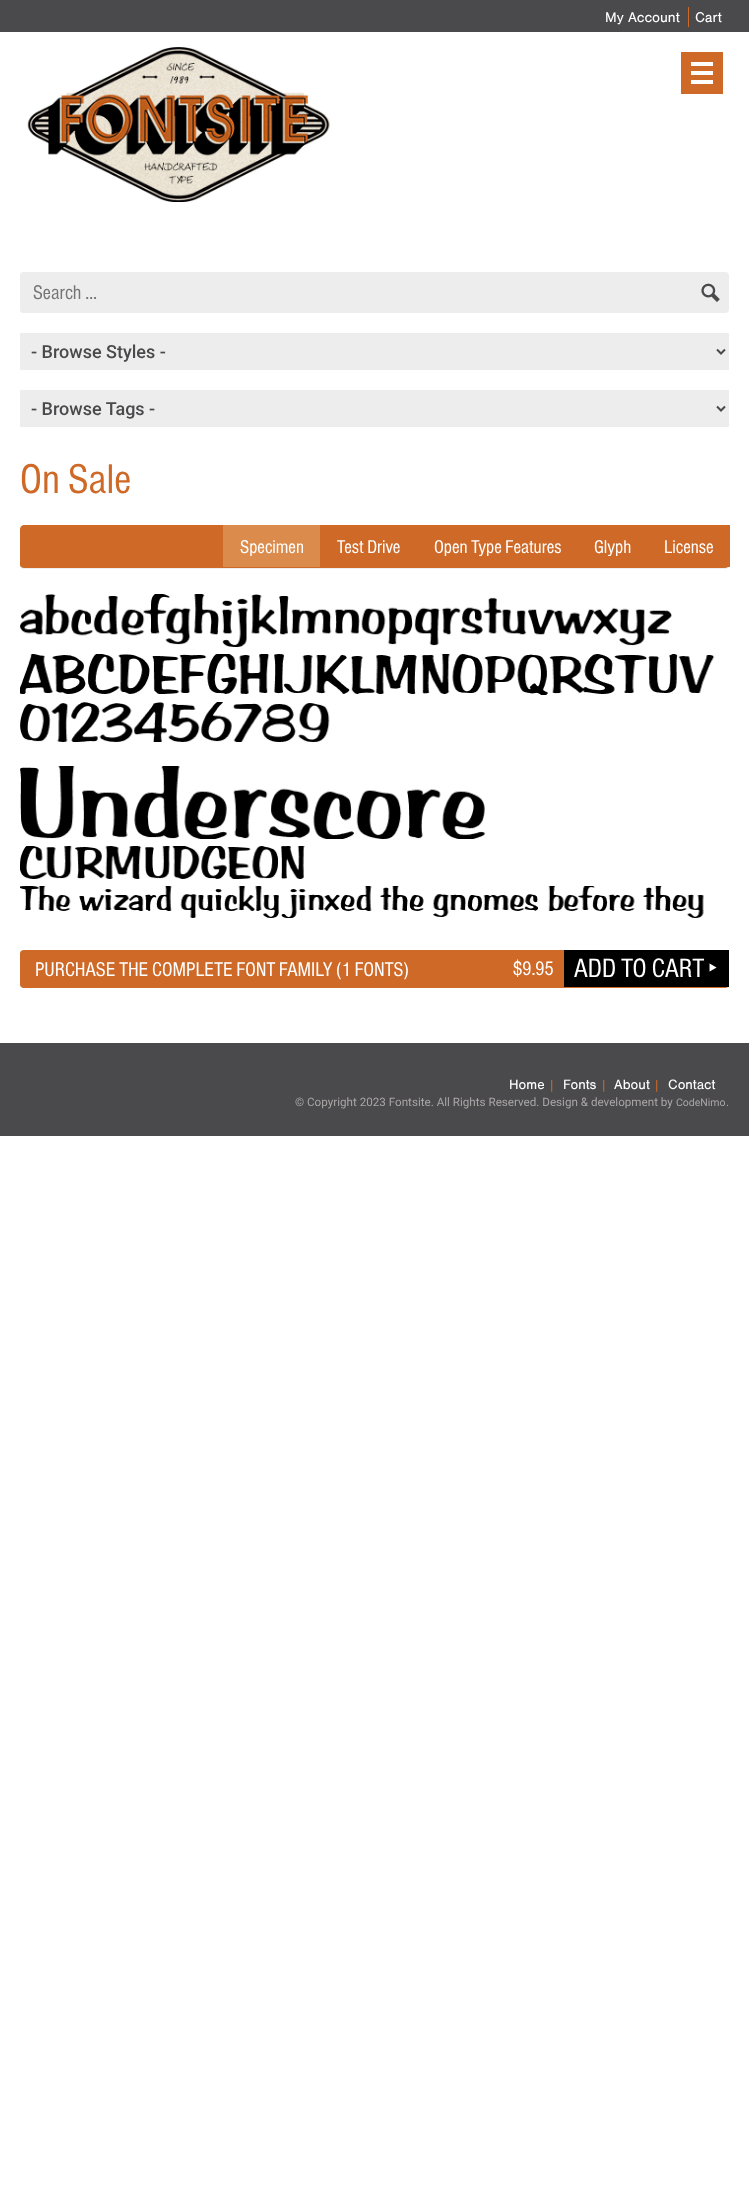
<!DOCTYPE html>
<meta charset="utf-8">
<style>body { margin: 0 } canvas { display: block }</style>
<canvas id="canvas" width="749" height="2210"></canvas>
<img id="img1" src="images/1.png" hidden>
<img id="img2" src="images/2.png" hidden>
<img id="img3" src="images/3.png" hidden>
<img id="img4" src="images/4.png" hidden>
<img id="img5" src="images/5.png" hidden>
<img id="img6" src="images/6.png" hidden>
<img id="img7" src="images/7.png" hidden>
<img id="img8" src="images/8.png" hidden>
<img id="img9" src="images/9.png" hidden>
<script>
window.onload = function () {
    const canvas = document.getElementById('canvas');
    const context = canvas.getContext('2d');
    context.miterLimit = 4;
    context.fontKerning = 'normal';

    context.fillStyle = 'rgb(255, 255, 255)';
    context.fillRect(0, 0, 749, 2210);
    context.fillStyle = 'rgb(74, 73, 75)';
    context.fillRect(0, 0, 749, 32);
    context.fillStyle = 'rgb(206, 105, 40)';
    context.fillRect(688, 7, 1, 20);
    context.drawImage(document.getElementById('img1'), 27, 47, 304, 155);
    context.fillRect(681, 52, 42, 42);
    context.fillStyle = 'rgb(255, 255, 255)';
    context.fillRect(691, 62, 22, 4);
    context.fillRect(691, 71, 22, 4);
    context.fillRect(691, 80, 22, 4);
    context.fillStyle = 'rgb(237, 237, 238)';
    context.beginPath();
    context.roundRect(20, 272, 671, 41, [4, 0, 0, 4]);
    context.fill();
    context.beginPath();
    context.roundRect(20, 272, 671, 41, 4);
    context.fill();
    context.beginPath();
    context.roundRect(691, 272, 38, 41, [0, 4, 4, 0]);
    context.fill();
    context.drawImage(document.getElementById('img2'), 701, 283, 19, 19);
    context.fillStyle = 'rgb(237, 237, 237)';
    context.fillRect(20, 333, 709, 37);
    context.beginPath();
    context.moveTo(717, 349.5);
    context.lineTo(721, 353.5);
    context.lineTo(725, 349.5);
    context.strokeStyle = 'rgb(74, 73, 75)';
    context.lineWidth = 2;
    context.stroke();
    context.fillRect(20, 390, 709, 37);
    context.beginPath();
    context.moveTo(717, 406.5);
    context.lineTo(721, 410.5);
    context.lineTo(725, 406.5);
    context.stroke();
    context.fillStyle = 'rgb(206, 105, 40)';
    context.beginPath();
    context.moveTo(24, 525);
    context.lineTo(725, 525);
    context.bezierCurveTo(727, 525, 729, 527, 729, 529);
    context.lineTo(729, 565);
    context.bezierCurveTo(729, 567, 727, 568, 725, 568);
    context.lineTo(24, 568);
    context.bezierCurveTo(22, 568, 20, 567, 20, 565);
    context.lineTo(20, 529);
    context.bezierCurveTo(20, 527, 22, 525, 24, 525);
    context.closePath();
    context.fill();
    context.fillStyle = 'rgb(238, 238, 238)';
    context.fillRect(22, 568, 705, 1);
    context.fillStyle = 'rgb(219, 139, 76)';
    context.fillRect(223, 525, 97, 42);
    context.fillStyle = 'rgb(206, 105, 40)';
    context.fillRect(725, 525, 5, 42);
    context.drawImage(document.getElementById('img3'), 20, 594, 652, 53);
    context.drawImage(document.getElementById('img4'), 20, 654, 695, 41);
    context.drawImage(document.getElementById('img5'), 20, 702, 709, 40);
    context.drawImage(document.getElementById('img6'), 20, 766, 465, 73);
    context.drawImage(document.getElementById('img7'), 20, 846, 285, 33);
    context.drawImage(document.getElementById('img8'), 20, 886, 684, 32);
    context.beginPath();
    context.roundRect(20, 950, 709, 38, 4);
    context.fill();
    context.fillStyle = 'rgb(0, 0, 0)';
    context.fillRect(564, 950, 165, 37);
    context.drawImage(document.getElementById('img9'), 709, 963, 8, 9);
    context.fillStyle = 'rgb(74, 73, 75)';
    context.fillRect(0, 1043, 749, 93);
    context.font = '14.5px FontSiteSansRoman';
    context.fillStyle = 'rgb(255, 255, 255)';
    context.fillText('My Account', 605, 22);
    context.fillText('Cart', 695, 22);
    context.font = '20.5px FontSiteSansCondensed';
    context.fillStyle = 'rgb(117, 117, 117)';
    context.fillText('Search …', 33, 299);
    context.font = '500 18px Roboto';
    context.fillStyle = 'rgb(74, 73, 75)';
    context.fillText('- Browse Styles -', 31, 358);
    context.fillText('- Browse Tags -', 31, 415);
    context.font = '43px FontSiteSansCondensed';
    context.fillStyle = 'rgb(206, 105, 40)';
    context.fillText('On Sale', 20, 493);
    context.font = '19.25px FontSiteSansCondensed';
    context.fillStyle = 'rgb(255, 255, 255)';
    context.fillText('Specimen', 240, 553);
    context.fillText('Test Drive', 337, 553);
    context.fillText('Open Type Features', 434, 553);
    context.fillText('Glyph', 594, 553);
    context.fillText('License', 664, 553);
    context.font = '20.6px FontSiteSansCondensed';
    context.fillText('PURCHASE THE COMPLETE FONT FAMILY (1 FONTS)', 35, 976);
    context.fillText('$9.95', 513, 975);
    context.font = '27.5px FontSiteSansCondensed';
    context.fillText('ADD TO CART', 574, 977);
    context.font = '14px FontSiteSansRoman';
    context.fillText('Home', 509, 1089);
    context.font = '14px Roboto';
    context.fillStyle = 'rgb(206, 105, 40)';
    context.fillText('|', 550, 1090);
    context.font = '14px FontSiteSansRoman';
    context.fillStyle = 'rgb(255, 255, 255)';
    context.fillText('Fonts', 563, 1089);
    context.font = '14px Roboto';
    context.fillStyle = 'rgb(206, 105, 40)';
    context.fillText('|', 602, 1090);
    context.font = '14px FontSiteSansRoman';
    context.fillStyle = 'rgb(255, 255, 255)';
    context.fillText('About', 614, 1089);
    context.font = '14px Roboto';
    context.fillStyle = 'rgb(206, 105, 40)';
    context.fillText('|', 655, 1090);
    context.font = '14px FontSiteSansRoman';
    context.fillStyle = 'rgb(255, 255, 255)';
    context.fillText('Contact', 668, 1089);
    context.font = '11.65px Roboto';
    context.fillStyle = 'rgb(169, 166, 166)';
    context.fillText('© Copyright 2023 Fontsite. All Rights Reserved. Design & development by', 295, 1106);
    context.font = '10.5px Roboto';
    context.fillText('CodeNimo', 676, 1106);
    context.font = '11.65px Roboto';
    context.fillText('.', 726, 1106);
};
</script>
